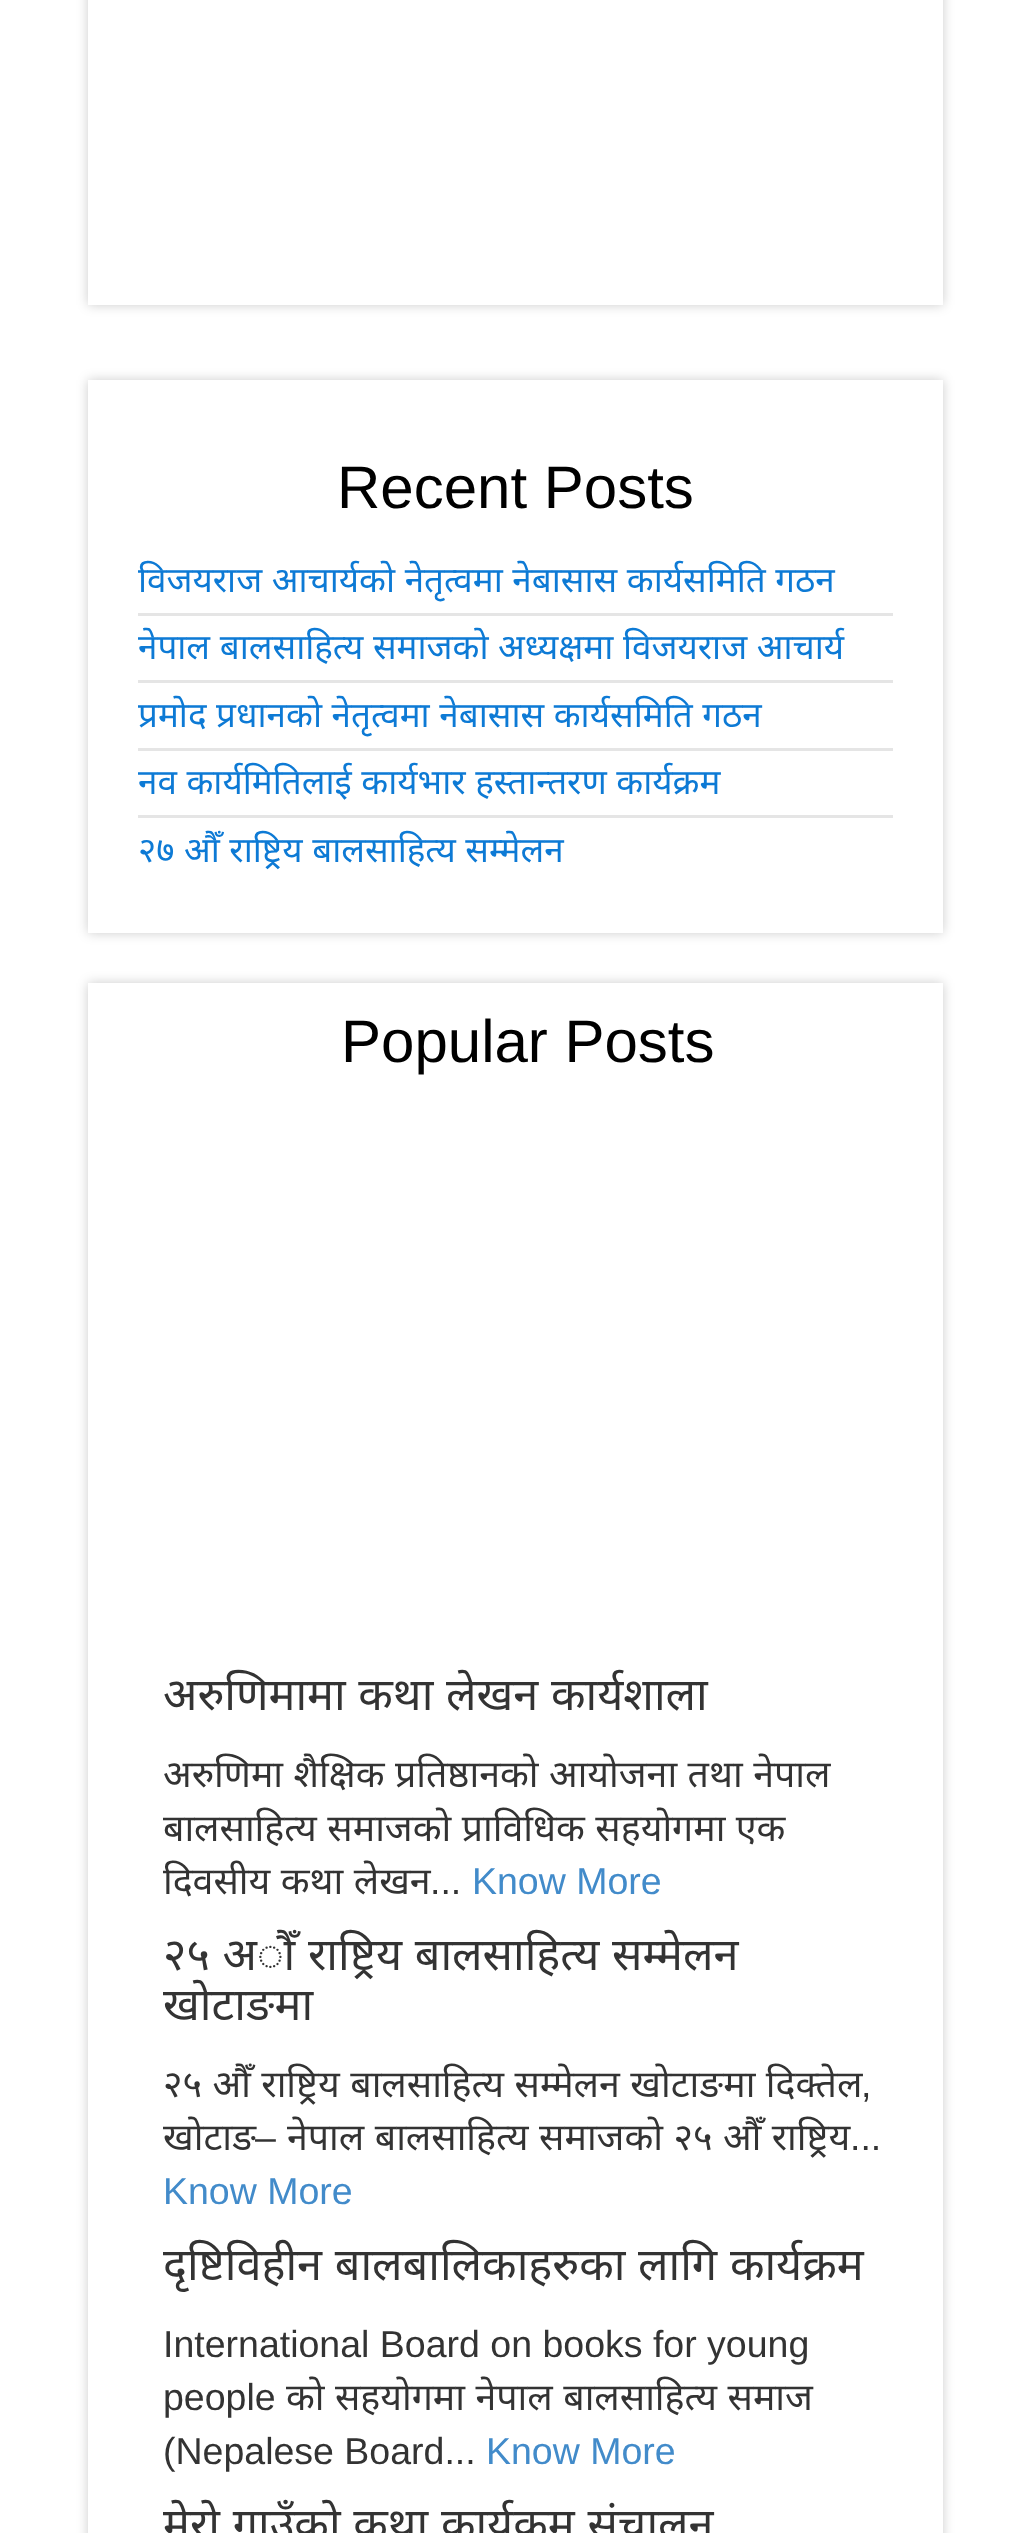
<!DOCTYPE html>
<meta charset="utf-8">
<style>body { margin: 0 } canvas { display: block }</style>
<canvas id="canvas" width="1030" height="2533"></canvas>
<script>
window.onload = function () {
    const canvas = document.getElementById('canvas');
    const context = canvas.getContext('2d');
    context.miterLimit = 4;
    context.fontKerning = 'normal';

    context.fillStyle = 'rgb(255, 255, 255)';
    context.fillRect(0, 0, 1030, 2533);
    context.fillStyle = 'rgba(0, 0, 0, 0.2)';
    context.filter = 'blur(6px)';
    context.beginPath();
    context.rect(88, -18, 855, 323);
    context.fill();
    context.filter = 'none';
    context.fillStyle = 'rgb(255, 255, 255)';
    context.fillRect(88, 0, 855, 305);
    context.fillStyle = 'rgba(0, 0, 0, 0.2)';
    context.filter = 'blur(6px)';
    context.beginPath();
    context.rect(88, 380, 855, 553);
    context.fill();
    context.filter = 'none';
    context.fillStyle = 'rgb(255, 255, 255)';
    context.fillRect(88, 380, 855, 553);
    context.fillStyle = 'rgb(229, 229, 229)';
    context.fillRect(138, 613, 755, 3);
    context.fillRect(138, 680, 755, 3);
    context.fillRect(138, 748, 755, 3);
    context.fillRect(138, 815, 755, 3);
    context.fillStyle = 'rgba(0, 0, 0, 0.2)';
    context.filter = 'blur(6px)';
    context.beginPath();
    context.rect(88, 983, 855, 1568);
    context.fill();
    context.filter = 'none';
    context.fillStyle = 'rgb(255, 255, 255)';
    context.fillRect(88, 983, 855, 1550);
    context.font = '60px Liberation Sans';
    context.fillStyle = 'rgb(0, 0, 0)';
    context.fillText('Recent Posts', 337, 508);
    context.wordSpacing = '0.5px';
    context.font = '35px Noto Sans';
    context.fillStyle = 'rgb(13, 122, 213)';
    context.fillText('विजयराज आचार्यको नेतृत्वमा नेबासास कार्यसमिति गठन', 138, 592);
    context.fillText('नेपाल बालसाहित्य समाजको अध्यक्षमा विजयराज आचार्य', 138, 659);
    context.fillText('प्रमोद प्रधानको नेतृत्वमा नेबासास कार्यसमिति गठन', 138, 727);
    context.fillText('नव कार्यमितिलाई कार्यभार हस्तान्तरण कार्यक्रम', 138, 794);
    context.fillText('२७ औँ राष्ट्रिय बालसाहित्य सम्मेलन', 138, 862);
    context.wordSpacing = '0px';
    context.font = '60px Liberation Sans';
    context.fillStyle = 'rgb(0, 0, 0)';
    context.fillText('Popular Posts', 341, 1062);
    context.wordSpacing = '1px';
    context.font = '45px Noto Sans';
    context.fillStyle = 'rgb(51, 51, 51)';
    context.fillText('अरुणिमामा कथा लेखन कार्यशाला', 163, 1710);
    context.wordSpacing = '0.75px';
    context.font = '37.5px Noto Sans';
    context.fillText('अरुणिमा शैक्षिक प्रतिष्ठानको आयोजना तथा नेपाल', 163, 1787);
    context.fillText('बालसाहित्य समाजको प्राविधिक सहयोगमा एक', 163, 1841);
    context.fillText('दिवसीय कथा लेखन', 163, 1894);
    context.wordSpacing = '0px';
    context.font = '37.5px Liberation Sans';
    context.fillText('...', 430, 1894);
    context.fillStyle = 'rgb(66, 139, 202)';
    context.fillText('Know More', 472, 1894);
    context.wordSpacing = '1px';
    context.font = '45px Noto Sans';
    context.fillStyle = 'rgb(51, 51, 51)';
    context.fillText('२५ अाैँ राष्ट्रिय बालसाहित्य सम्मेलन', 163, 1970);
    context.wordSpacing = '0px';
    context.fillText('खाेटाङमा', 163, 2020);
    context.wordSpacing = '0.75px';
    context.font = '37.5px Noto Sans';
    context.fillText('२५ औँ राष्ट्रिय बालसाहित्य सम्मेलन खोटाङमा दिक्तेल', 163, 2097);
    context.wordSpacing = '0px';
    context.font = '37.5px Liberation Sans';
    context.fillText(',', 861, 2097);
    context.font = '37.5px Noto Sans';
    context.fillText('खोटाङ', 163, 2150);
    context.font = '37.5px Liberation Sans';
    context.fillText('–', 255, 2150);
    context.wordSpacing = '0.75px';
    context.font = '37.5px Noto Sans';
    context.fillText('नेपाल बालसाहित्य समाजको २५ औँ राष्ट्रिय', 287, 2150);
    context.wordSpacing = '0px';
    context.font = '37.5px Liberation Sans';
    context.fillText('...', 850, 2150);
    context.fillStyle = 'rgb(66, 139, 202)';
    context.fillText('Know More', 163, 2204);
    context.wordSpacing = '1px';
    context.font = '45px Noto Sans';
    context.fillStyle = 'rgb(51, 51, 51)';
    context.fillText('दृष्टिविहीन बालबालिकाहरुका लागि कार्यक्रम', 163, 2280);
    context.wordSpacing = '0px';
    context.font = '37.5px Liberation Sans';
    context.fillText('International Board on books for young', 163, 2357);
    context.fillText('people', 163, 2410);
    context.wordSpacing = '0.75px';
    context.font = '37.5px Noto Sans';
    context.fillText('काे सहयाेगमा नेपाल बालसाहित्य समाज', 286, 2410);
    context.wordSpacing = '0px';
    context.font = '37.5px Liberation Sans';
    context.fillText('(Nepalese Board...', 163, 2464);
    context.fillStyle = 'rgb(66, 139, 202)';
    context.fillText('Know More', 486, 2464);
    context.wordSpacing = '1px';
    context.font = '45px Noto Sans';
    context.fillStyle = 'rgb(51, 51, 51)';
    context.fillText('मेरो गाउँको कथा कार्यक्रम संचालन', 163, 2540);
};
</script>
